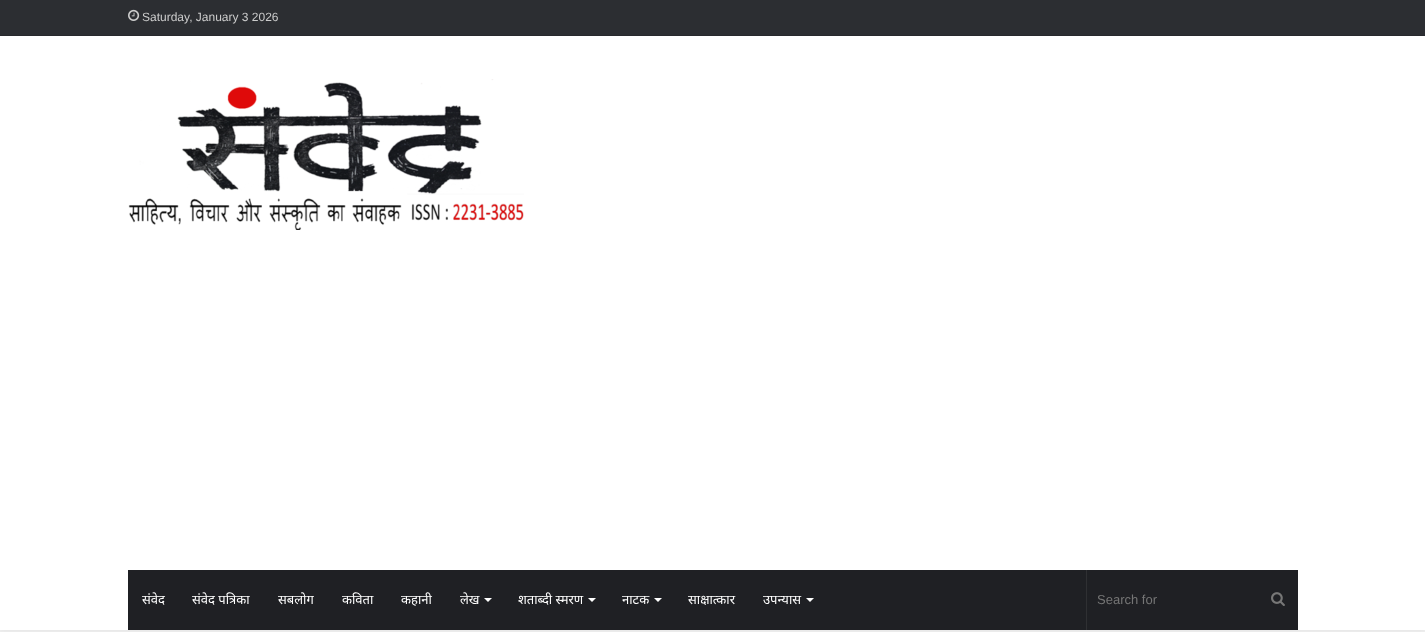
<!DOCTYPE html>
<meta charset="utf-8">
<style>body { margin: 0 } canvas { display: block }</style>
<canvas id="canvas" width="1425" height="632"></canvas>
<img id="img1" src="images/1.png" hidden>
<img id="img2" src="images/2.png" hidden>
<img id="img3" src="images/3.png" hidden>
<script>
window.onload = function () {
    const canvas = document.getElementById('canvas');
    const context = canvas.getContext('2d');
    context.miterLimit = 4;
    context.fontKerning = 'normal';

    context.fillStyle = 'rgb(255, 255, 255)';
    context.fillRect(0, 0, 1425, 632);
    context.save();
    context.beginPath();
    context.rect(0, 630, 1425, 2);
    context.clip();
    context.fillStyle = 'rgba(0, 0, 0, 0.1)';
    context.filter = 'blur(5px)';
    context.beginPath();
    context.rect(-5, -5, 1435, 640);
    context.fill();
    context.filter = 'none';
    context.restore();
    context.fillStyle = 'rgb(44, 46, 50)';
    context.fillRect(0, 0, 1425, 35);
    context.fillStyle = 'rgb(40, 41, 45)';
    context.fillRect(0, 35, 1425, 1);
    context.drawImage(document.getElementById('img1'), 128, 9, 12, 12);
    context.drawImage(document.getElementById('img2'), 128, 79, 396, 151);
    context.fillStyle = 'rgb(31, 32, 36)';
    context.fillRect(128, 570, 1170, 60);
    context.fillStyle = 'rgb(255, 255, 255)';
    context.beginPath();
    context.moveTo(484, 598);
    context.lineTo(492, 598);
    context.lineTo(488, 602);
    context.closePath();
    context.fill();
    context.beginPath();
    context.moveTo(588, 598);
    context.lineTo(596, 598);
    context.lineTo(592, 602);
    context.closePath();
    context.fill();
    context.beginPath();
    context.moveTo(654, 598);
    context.lineTo(662, 598);
    context.lineTo(658, 602);
    context.closePath();
    context.fill();
    context.beginPath();
    context.moveTo(806, 598);
    context.lineTo(814, 598);
    context.lineTo(810, 602);
    context.closePath();
    context.fill();
    context.fillStyle = 'rgb(47, 48, 51)';
    context.fillRect(1086, 570, 1, 60);
    context.drawImage(document.getElementById('img3'), 1271, 592, 14, 14);
    context.font = '12px Liberation Sans';
    context.fillStyle = 'rgb(204, 204, 204)';
    context.fillText('Saturday, January 3 2026', 142, 21);
    context.font = '13px Noto Sans';
    context.fillStyle = 'rgb(255, 255, 255)';
    context.fillText('संवेद', 142, 604);
    context.fillText('संवेद पत्रिका', 192, 604);
    context.fillText('सबलोग', 278, 604);
    context.fillText('कविता', 342, 604);
    context.fillText('कहानी', 401, 604);
    context.fillText('लेख', 460, 604);
    context.fillText('शताब्दी स्मरण', 518, 604);
    context.fillText('नाटक', 622, 604);
    context.fillText('साक्षात्कार', 688, 604);
    context.fillText('उपन्यास', 763, 604);
    context.font = '13px Liberation Sans';
    context.fillStyle = 'rgb(117, 117, 117)';
    context.fillText('Search for', 1097, 604);
};
</script>
